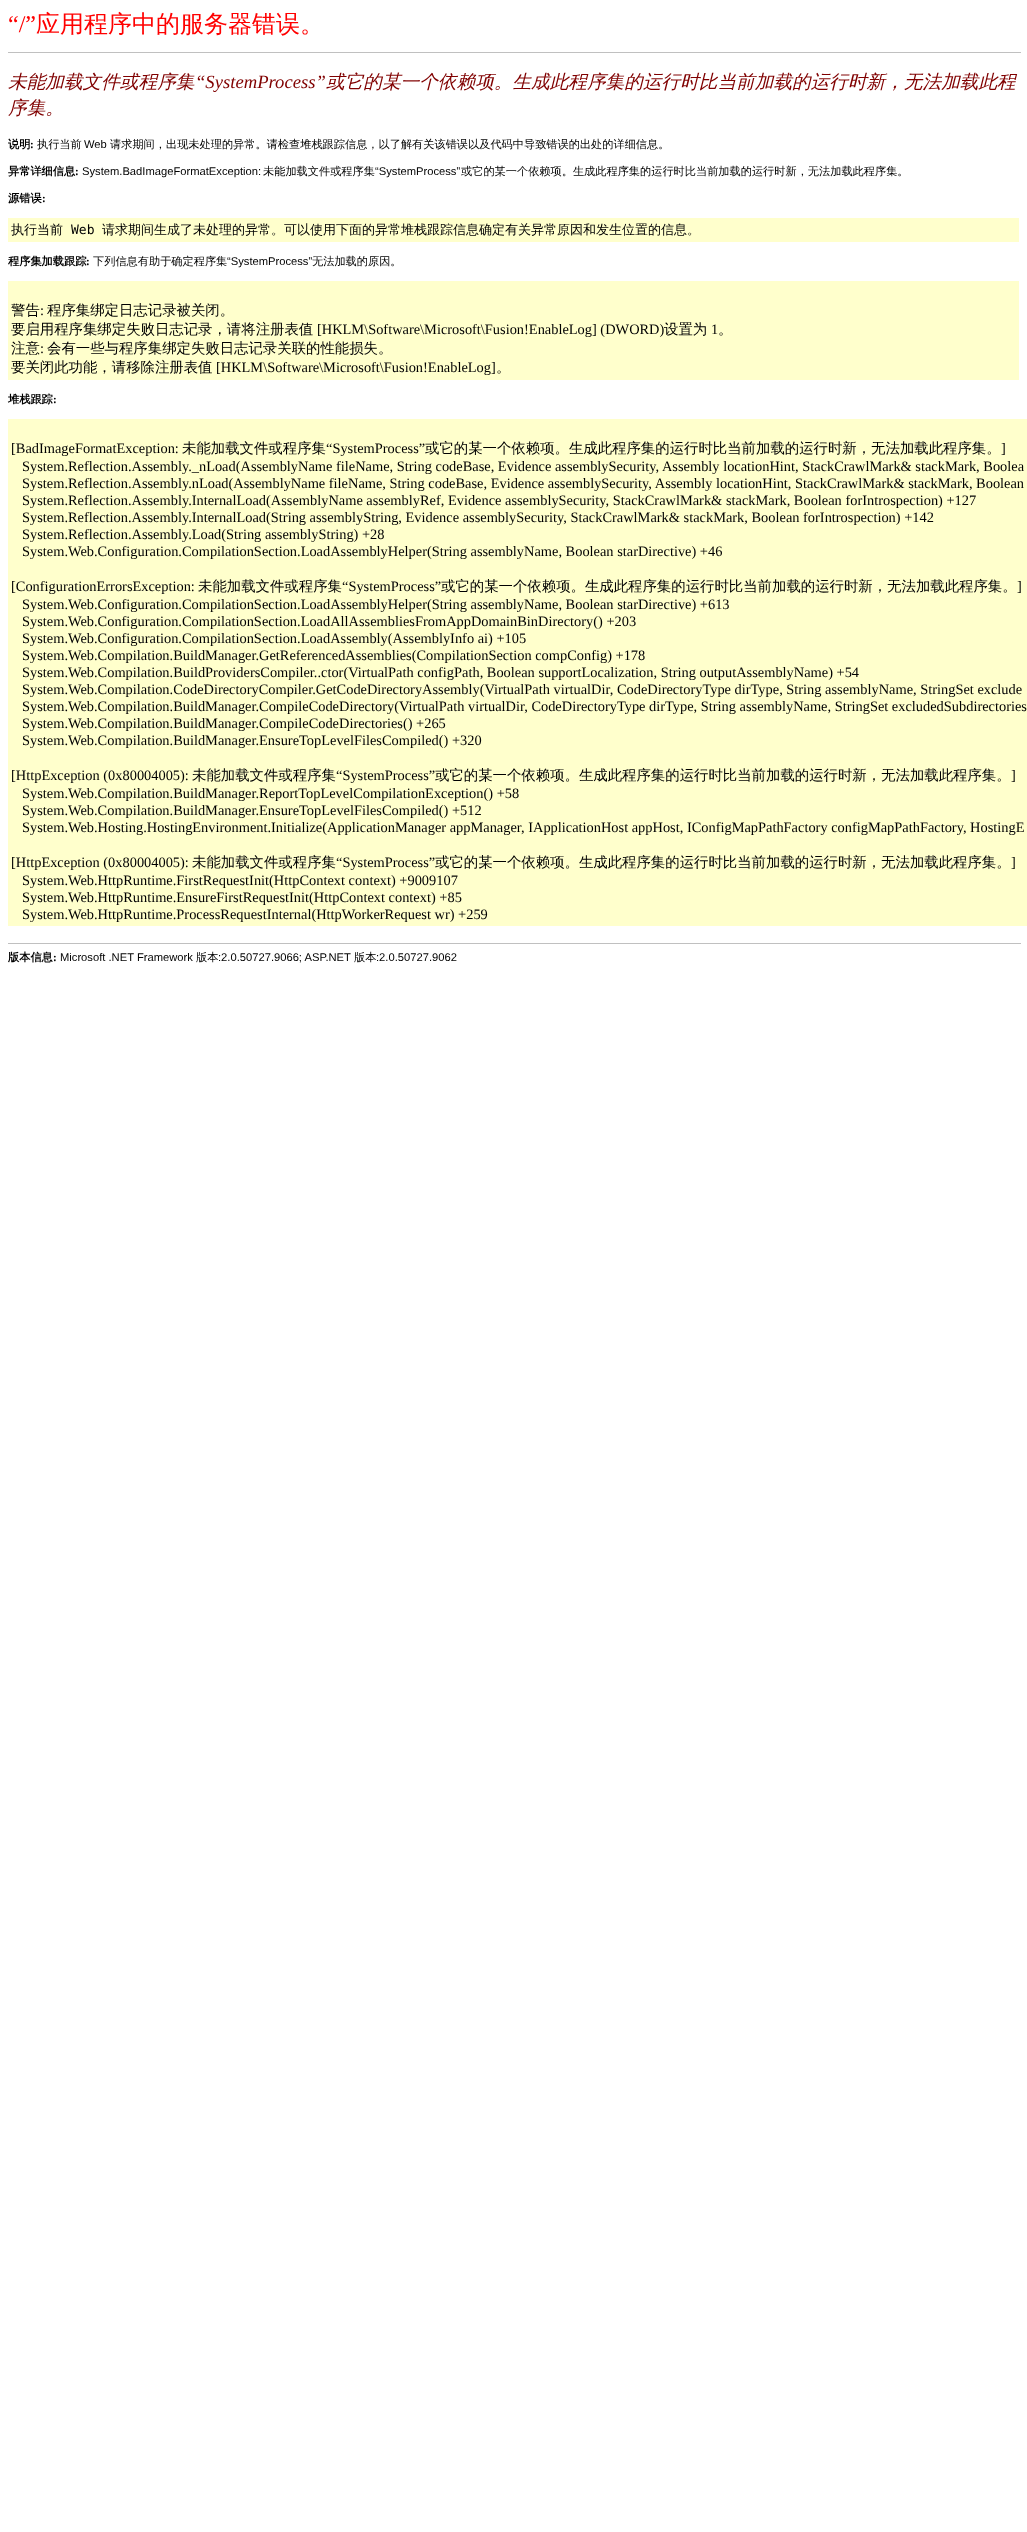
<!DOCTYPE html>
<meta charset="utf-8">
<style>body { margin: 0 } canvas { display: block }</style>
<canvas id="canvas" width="1027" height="2532"></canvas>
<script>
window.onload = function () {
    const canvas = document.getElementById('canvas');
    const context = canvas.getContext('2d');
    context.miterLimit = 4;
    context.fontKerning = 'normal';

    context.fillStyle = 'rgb(255, 255, 255)';
    context.fillRect(0, 0, 1027, 2532);
    context.fillStyle = 'rgb(192, 192, 192)';
    context.fillRect(8, 52, 1013, 1);
    context.fillStyle = 'rgb(255, 255, 204)';
    context.fillRect(8, 218, 1011, 24);
    context.fillRect(8, 281, 1011, 99);
    context.fillRect(8, 419, 1019, 507);
    context.fillStyle = 'rgb(192, 192, 192)';
    context.fillRect(8, 943, 1013, 1);
    context.font = '24px Liberation Serif';
    context.fillStyle = 'rgb(255, 0, 0)';
    context.fillText('“/”', 8, 32);
    context.font = '500 24px WenQuanYi Zen Hei';
    context.fillText('应用程序中的服务器错误。', 36, 32);
    context.font = 'italic 500 18.65px WenQuanYi Zen Hei';
    context.fillStyle = 'rgb(128, 0, 0)';
    context.fillText('未能加载文件或程序集', 8, 88);
    context.font = 'italic 18.65px Liberation Serif';
    context.fillText('“SystemProcess”', 195, 88);
    context.font = 'italic 500 18.65px WenQuanYi Zen Hei';
    context.fillText('或它的某一个依赖项。生成此程序集的运行时比当前加载的运行时新，无法加载此程', 326, 88);
    context.fillText('序集。', 8, 114);
    context.font = 'bold 11.2px WenQuanYi Zen Hei';
    context.fillStyle = 'rgb(0, 0, 0)';
    context.fillText('说明', 8, 148);
    context.font = 'bold 11.2px Liberation Serif';
    context.fillText(':', 30, 148);
    context.font = '500 11.2px WenQuanYi Zen Hei';
    context.fillText('执行当前', 37, 148);
    context.font = '11.2px Liberation Sans';
    context.fillText('Web', 84, 148);
    context.font = '500 11.2px WenQuanYi Zen Hei';
    context.fillText('请求期间，出现未处理的异常。请检查堆栈跟踪信息，以了解有关该错误以及代码中导致错误的出处的详细信息。', 110, 148);
    context.font = 'bold 11.2px WenQuanYi Zen Hei';
    context.fillText('异常详细信息', 8, 175);
    context.font = 'bold 11.2px Liberation Serif';
    context.fillText(':', 75, 175);
    context.font = '11.2px Liberation Sans';
    context.fillText('System.BadImageFormatException:', 82, 175);
    context.font = '500 11.2px WenQuanYi Zen Hei';
    context.fillText('未能加载文件或程序集', 263, 175);
    context.font = '11.2px Liberation Sans';
    context.fillText('“SystemProcess”', 375, 175);
    context.font = '500 11.2px WenQuanYi Zen Hei';
    context.fillText('或它的某一个依赖项。生成此程序集的运行时比当前加载的运行时新，无法加载此程序集。', 461, 175);
    context.font = 'bold 11.2px WenQuanYi Zen Hei';
    context.fillText('源错误', 8, 202);
    context.font = 'bold 11.2px Liberation Serif';
    context.fillText(':', 42, 202);
    context.font = '500 13px WenQuanYi Zen Hei';
    context.fillText('执行当前', 11, 234);
    context.font = '13px DejaVu Sans Mono';
    context.fillText('Web', 71, 234);
    context.font = '500 13px WenQuanYi Zen Hei';
    context.fillText('请求期间生成了未处理的异常。可以使用下面的异常堆栈跟踪信息确定有关异常原因和发生位置的信息。', 102, 234);
    context.font = 'bold 11.2px WenQuanYi Zen Hei';
    context.fillText('程序集加载跟踪', 8, 265);
    context.font = 'bold 11.2px Liberation Serif';
    context.fillText(':', 86, 265);
    context.font = '500 11.2px WenQuanYi Zen Hei';
    context.fillText('下列信息有助于确定程序集', 93, 265);
    context.font = '11.2px Liberation Sans';
    context.fillText('“SystemProcess”', 227, 265);
    context.font = '500 11.2px WenQuanYi Zen Hei';
    context.fillText('无法加载的原因。', 312, 265);
    context.font = '500 14.4px WenQuanYi Zen Hei';
    context.fillText('警告', 11, 315);
    context.font = '14.4px Liberation Serif';
    context.fillText(':', 40, 315);
    context.font = '500 14.4px WenQuanYi Zen Hei';
    context.fillText('程序集绑定日志记录被关闭。', 47, 315);
    context.fillText('要启用程序集绑定失败日志记录，请将注册表值', 11, 334);
    context.font = '14.4px Liberation Serif';
    context.fillText('[HKLM\\Software\\Microsoft\\Fusion!EnableLog] (DWORD)', 317, 334);
    context.font = '500 14.4px WenQuanYi Zen Hei';
    context.fillText('设置为', 664, 334);
    context.font = '14.4px Liberation Serif';
    context.fillText('1', 711, 334);
    context.font = '500 14.4px WenQuanYi Zen Hei';
    context.fillText('。', 718, 334);
    context.fillText('注意', 11, 353);
    context.font = '14.4px Liberation Serif';
    context.fillText(':', 40, 353);
    context.font = '500 14.4px WenQuanYi Zen Hei';
    context.fillText('会有一些与程序集绑定失败日志记录关联的性能损失。', 47, 353);
    context.fillText('要关闭此功能，请移除注册表值', 11, 372);
    context.font = '14.4px Liberation Serif';
    context.fillText('[HKLM\\Software\\Microsoft\\Fusion!EnableLog]', 216, 372);
    context.font = '500 14.4px WenQuanYi Zen Hei';
    context.fillText('。', 496, 372);
    context.font = 'bold 11.2px WenQuanYi Zen Hei';
    context.fillText('堆栈跟踪', 8, 403);
    context.font = 'bold 11.2px Liberation Serif';
    context.fillText(':', 53, 403);
    context.font = '14.4px Liberation Serif';
    context.fillText('[BadImageFormatException:', 11, 453);
    context.font = '500 14.4px WenQuanYi Zen Hei';
    context.fillText('未能加载文件或程序集', 182, 453);
    context.font = '14.4px Liberation Serif';
    context.fillText('“SystemProcess”', 326, 453);
    context.font = '500 14.4px WenQuanYi Zen Hei';
    context.fillText('或它的某一个依赖项。生成此程序集的运行时比当前加载的运行时新，无法加载此程序集。', 425, 453);
    context.font = '14.4px Liberation Serif';
    context.fillText(']', 1001, 453);
    context.fillText('System.Reflection.Assembly._nLoad(AssemblyName fileName, String codeBase, Evidence assemblySecurity, Assembly locationHint, StackCrawlMark& stackMark, Boolea', 22, 471);
    context.fillText('System.Reflection.Assembly.nLoad(AssemblyName fileName, String codeBase, Evidence assemblySecurity, Assembly locationHint, StackCrawlMark& stackMark, Boolean', 22, 488);
    context.fillText('System.Reflection.Assembly.InternalLoad(AssemblyName assemblyRef, Evidence assemblySecurity, StackCrawlMark& stackMark, Boolean forIntrospection) +127', 22, 505);
    context.fillText('System.Reflection.Assembly.InternalLoad(String assemblyString, Evidence assemblySecurity, StackCrawlMark& stackMark, Boolean forIntrospection) +142', 22, 522);
    context.fillText('System.Reflection.Assembly.Load(String assemblyString) +28', 22, 539);
    context.fillText('System.Web.Configuration.CompilationSection.LoadAssemblyHelper(String assemblyName, Boolean starDirective) +46', 22, 556);
    context.fillText('[ConfigurationErrorsException:', 11, 591);
    context.font = '500 14.4px WenQuanYi Zen Hei';
    context.fillText('未能加载文件或程序集', 198, 591);
    context.font = '14.4px Liberation Serif';
    context.fillText('“SystemProcess”', 342, 591);
    context.font = '500 14.4px WenQuanYi Zen Hei';
    context.fillText('或它的某一个依赖项。生成此程序集的运行时比当前加载的运行时新，无法加载此程序集。', 441, 591);
    context.font = '14.4px Liberation Serif';
    context.fillText(']', 1017, 591);
    context.fillText('System.Web.Configuration.CompilationSection.LoadAssemblyHelper(String assemblyName, Boolean starDirective) +613', 22, 609);
    context.fillText('System.Web.Configuration.CompilationSection.LoadAllAssembliesFromAppDomainBinDirectory() +203', 22, 626);
    context.fillText('System.Web.Configuration.CompilationSection.LoadAssembly(AssemblyInfo ai) +105', 22, 643);
    context.fillText('System.Web.Compilation.BuildManager.GetReferencedAssemblies(CompilationSection compConfig) +178', 22, 660);
    context.fillText('System.Web.Compilation.BuildProvidersCompiler..ctor(VirtualPath configPath, Boolean supportLocalization, String outputAssemblyName) +54', 22, 677);
    context.fillText('System.Web.Compilation.CodeDirectoryCompiler.GetCodeDirectoryAssembly(VirtualPath virtualDir, CodeDirectoryType dirType, String assemblyName, StringSet exclude', 22, 694);
    context.fillText('System.Web.Compilation.BuildManager.CompileCodeDirectory(VirtualPath virtualDir, CodeDirectoryType dirType, String assemblyName, StringSet excludedSubdirectories', 22, 711);
    context.fillText('System.Web.Compilation.BuildManager.CompileCodeDirectories() +265', 22, 728);
    context.fillText('System.Web.Compilation.BuildManager.EnsureTopLevelFilesCompiled() +320', 22, 745);
    context.fillText('[HttpException (0x80004005):', 11, 780);
    context.font = '500 14.4px WenQuanYi Zen Hei';
    context.fillText('未能加载文件或程序集', 192, 780);
    context.font = '14.4px Liberation Serif';
    context.fillText('“SystemProcess”', 336, 780);
    context.font = '500 14.4px WenQuanYi Zen Hei';
    context.fillText('或它的某一个依赖项。生成此程序集的运行时比当前加载的运行时新，无法加载此程序集。', 435, 780);
    context.font = '14.4px Liberation Serif';
    context.fillText(']', 1011, 780);
    context.fillText('System.Web.Compilation.BuildManager.ReportTopLevelCompilationException() +58', 22, 798);
    context.fillText('System.Web.Compilation.BuildManager.EnsureTopLevelFilesCompiled() +512', 22, 815);
    context.fillText('System.Web.Hosting.HostingEnvironment.Initialize(ApplicationManager appManager, IApplicationHost appHost, IConfigMapPathFactory configMapPathFactory, HostingE', 22, 832);
    context.fillText('[HttpException (0x80004005):', 11, 867);
    context.font = '500 14.4px WenQuanYi Zen Hei';
    context.fillText('未能加载文件或程序集', 192, 867);
    context.font = '14.4px Liberation Serif';
    context.fillText('“SystemProcess”', 336, 867);
    context.font = '500 14.4px WenQuanYi Zen Hei';
    context.fillText('或它的某一个依赖项。生成此程序集的运行时比当前加载的运行时新，无法加载此程序集。', 435, 867);
    context.font = '14.4px Liberation Serif';
    context.fillText(']', 1011, 867);
    context.fillText('System.Web.HttpRuntime.FirstRequestInit(HttpContext context) +9009107', 22, 885);
    context.fillText('System.Web.HttpRuntime.EnsureFirstRequestInit(HttpContext context) +85', 22, 902);
    context.fillText('System.Web.HttpRuntime.ProcessRequestInternal(HttpWorkerRequest wr) +259', 22, 919);
    context.font = 'bold 11.2px WenQuanYi Zen Hei';
    context.fillText('版本信息', 8, 961);
    context.font = 'bold 11.2px Liberation Serif';
    context.fillText(':', 53, 961);
    context.font = '11.2px Liberation Sans';
    context.fillText('Microsoft .NET Framework', 60, 961);
    context.font = '500 11.2px WenQuanYi Zen Hei';
    context.fillText('版本', 196, 961);
    context.font = '11.2px Liberation Sans';
    context.fillText(':2.0.50727.9066; ASP.NET', 218, 961);
    context.font = '500 11.2px WenQuanYi Zen Hei';
    context.fillText('版本', 354, 961);
    context.font = '11.2px Liberation Sans';
    context.fillText(':2.0.50727.9062', 376, 961);
};
</script>
